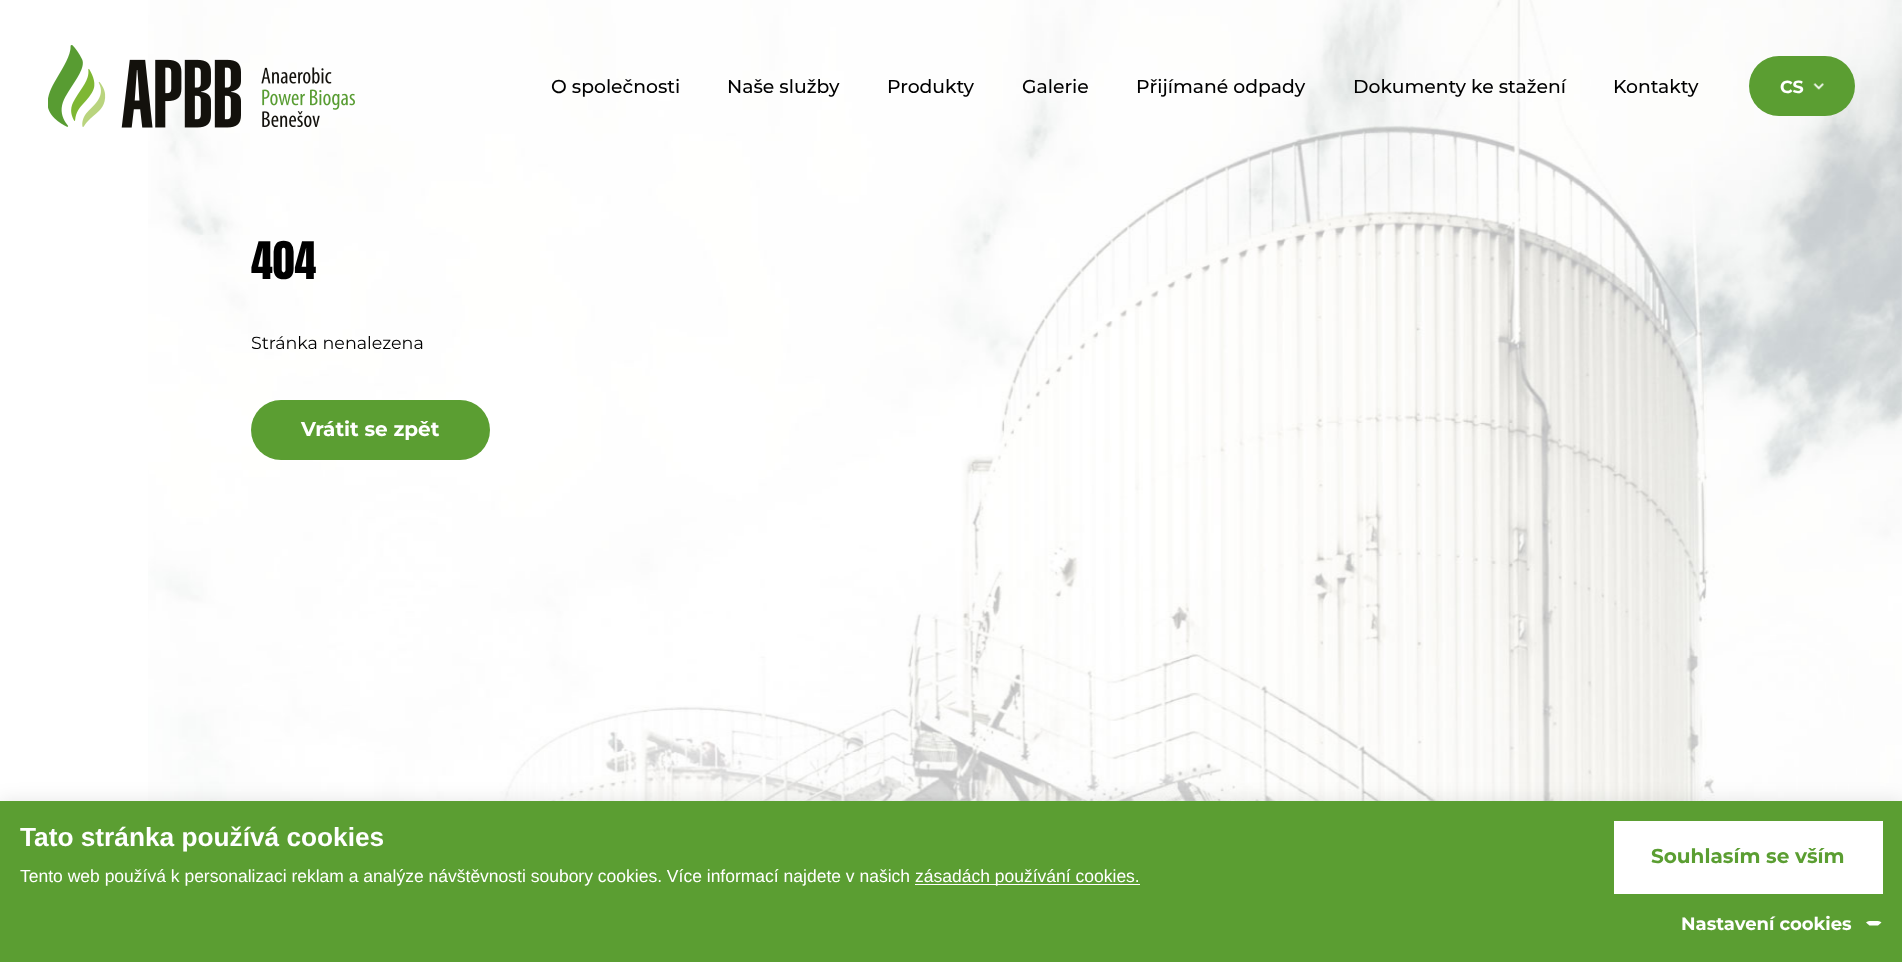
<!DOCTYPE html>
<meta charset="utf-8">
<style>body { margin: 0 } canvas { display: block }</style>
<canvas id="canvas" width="1902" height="962"></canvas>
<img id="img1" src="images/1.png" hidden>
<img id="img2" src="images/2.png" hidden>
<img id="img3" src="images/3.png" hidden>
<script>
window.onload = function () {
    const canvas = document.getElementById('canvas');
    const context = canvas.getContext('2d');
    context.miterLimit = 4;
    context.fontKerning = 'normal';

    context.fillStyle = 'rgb(255, 255, 255)';
    context.fillRect(0, 0, 1902, 962);
    context.drawImage(document.getElementById('img1'), 148, 0, 1754, 801);
    context.drawImage(document.getElementById('img2'), 48, 45, 307, 83);
    context.fillStyle = 'rgb(91, 158, 50)';
    context.beginPath();
    context.roundRect(1749, 56, 106, 60, 30);
    context.fill();
    context.drawImage(document.getElementById('img3'), 1813, 83, 11, 7);
    context.beginPath();
    context.roundRect(251, 400, 239, 60, 30);
    context.fill();
    context.fillStyle = 'rgba(0, 0, 0, 0.1)';
    context.filter = 'blur(9.5px)';
    context.beginPath();
    context.rect(0, 801, 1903, 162);
    context.fill();
    context.filter = 'none';
    context.fillStyle = 'rgb(91, 158, 50)';
    context.fillRect(0, 801, 1902, 161);
    context.fillStyle = 'rgb(255, 255, 255)';
    context.fillRect(915, 884, 225, 1);
    context.fillRect(1614, 821, 269, 73);
    context.beginPath();
    context.moveTo(1866, 922.5);
    context.bezierCurveTo(1868, 920.5, 1871, 921, 1873.5, 921);
    context.bezierCurveTo(1876, 921, 1879.5, 920.5, 1881.5, 922.5);
    context.lineTo(1878, 925.5);
    context.lineTo(1869.5, 925.5);
    context.closePath();
    context.fill();
    context.font = '500 18.75px Montserrat';
    context.fillStyle = 'rgb(0, 0, 0)';
    context.fillText('O společnosti', 551, 93);
    context.fillText('Naše služby', 727, 93);
    context.fillText('Produkty', 887, 93);
    context.fillText('Galerie', 1022, 93);
    context.fillText('Přijímané odpady', 1136, 93);
    context.fillText('Dokumenty ke stažení', 1353, 93);
    context.fillText('Kontakty', 1613, 93);
    context.font = 'bold 17.5px Montserrat';
    context.fillStyle = 'rgb(255, 255, 255)';
    context.fillText('CS', 1780, 93);
    context.font = '44px Anton';
    context.fillStyle = 'rgb(0, 0, 0)';
    context.fillText('404', 251, 279);
    context.font = '17.5px Montserrat';
    context.fillText('Stránka nenalezena', 251, 349);
    context.font = 'bold 20px Montserrat';
    context.fillStyle = 'rgb(255, 255, 255)';
    context.fillText('Vrátit se zpět', 301, 436);
    context.font = 'bold 26.25px Liberation Sans';
    context.fillText('Tato stránka používá cookies', 20, 846);
    context.font = '17.5px Liberation Sans';
    context.fillText('Tento web používá k personalizaci reklam a analýze návštěvnosti soubory cookies. Více informací najdete v našich', 20, 882);
    context.fillText('zásadách používání cookies.', 915, 882);
    context.font = 'bold 20px Montserrat';
    context.fillStyle = 'rgb(91, 158, 50)';
    context.fillText('Souhlasím se vším', 1651, 863);
    context.font = 'bold 18px Montserrat';
    context.fillStyle = 'rgb(255, 255, 255)';
    context.fillText('Nastavení cookies', 1681, 930);
};
</script>
